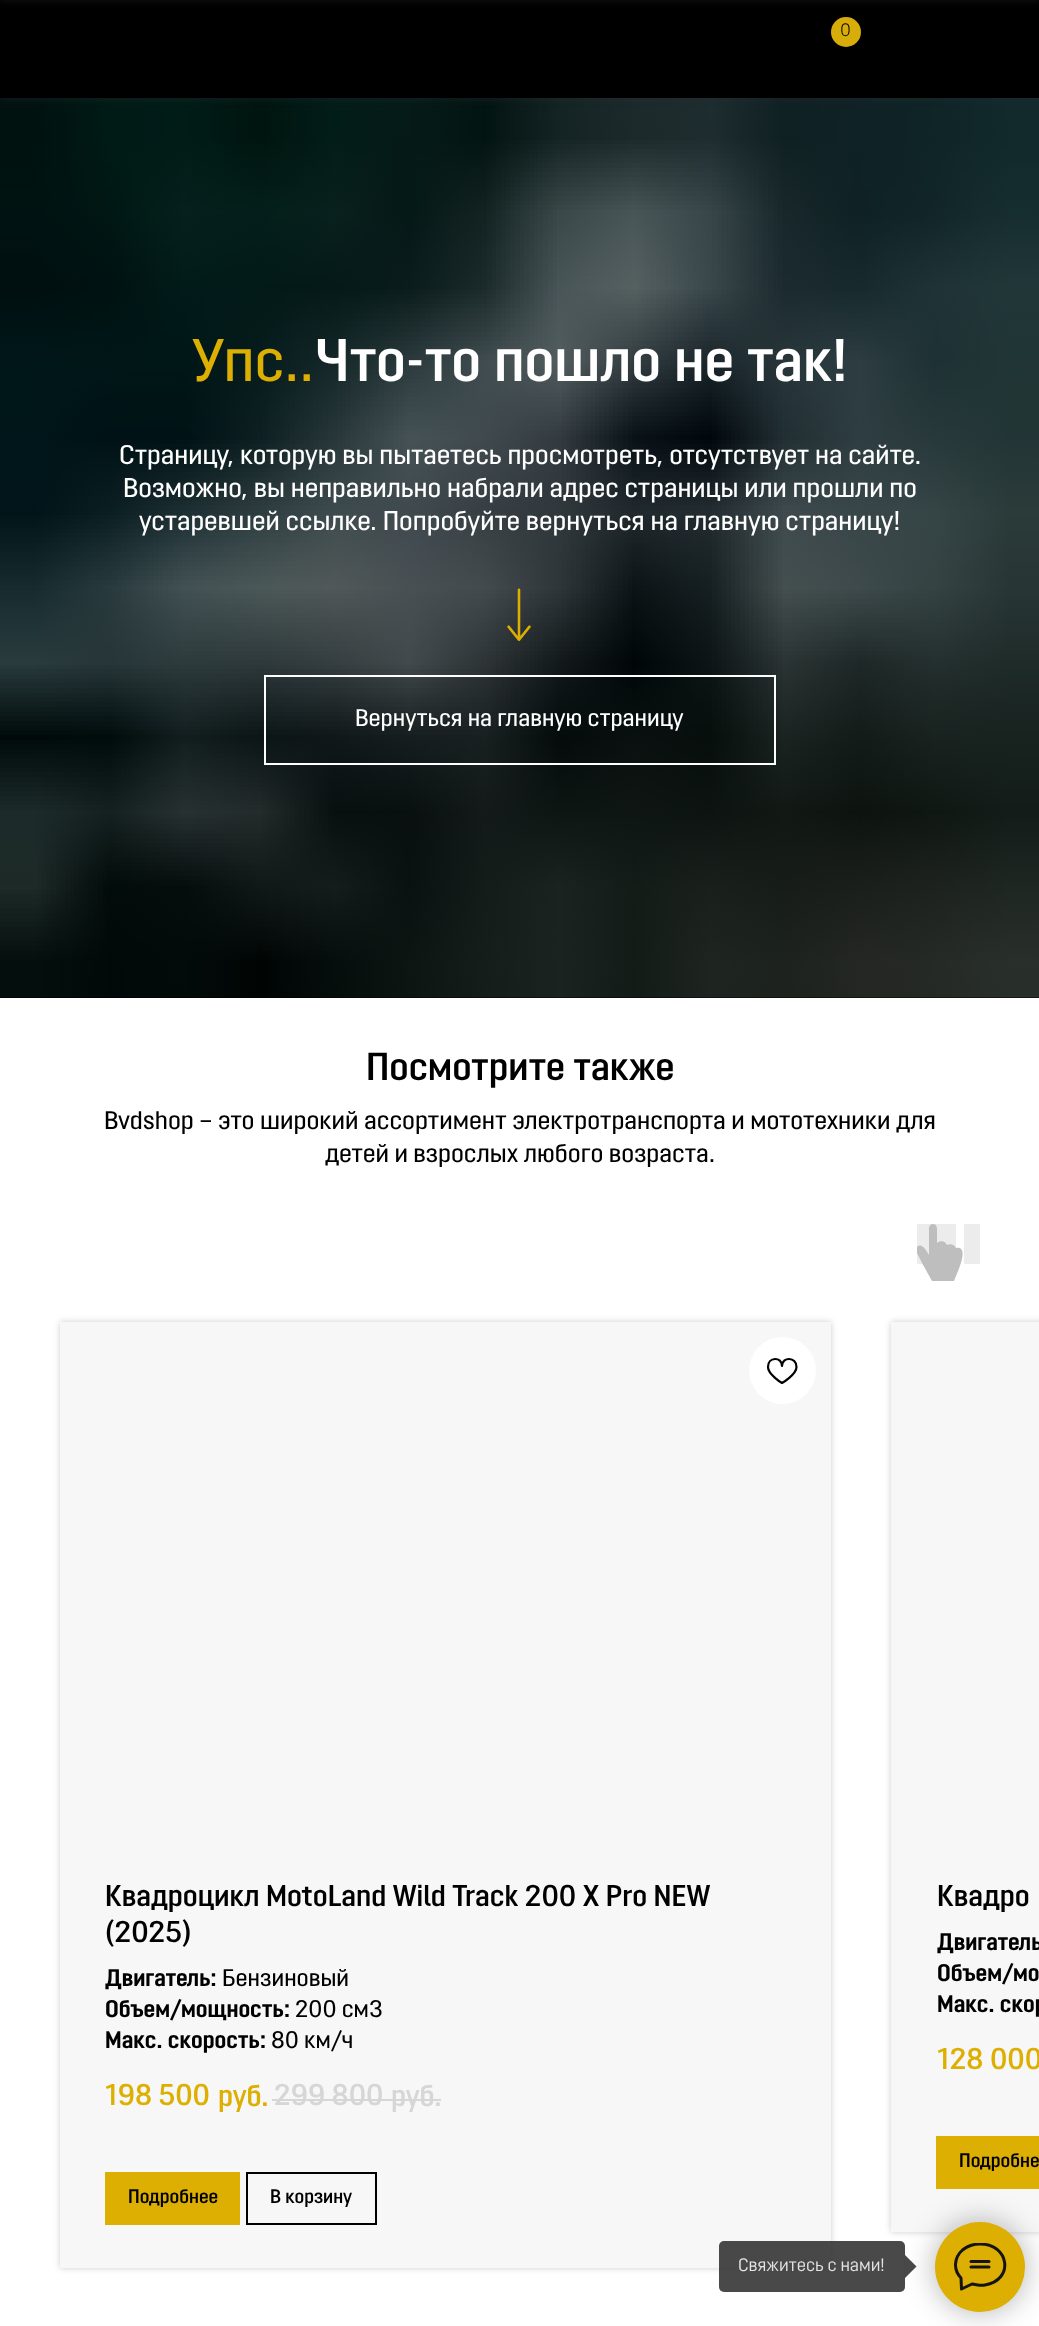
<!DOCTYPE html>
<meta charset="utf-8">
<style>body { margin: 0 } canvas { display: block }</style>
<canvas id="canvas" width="1039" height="2326"></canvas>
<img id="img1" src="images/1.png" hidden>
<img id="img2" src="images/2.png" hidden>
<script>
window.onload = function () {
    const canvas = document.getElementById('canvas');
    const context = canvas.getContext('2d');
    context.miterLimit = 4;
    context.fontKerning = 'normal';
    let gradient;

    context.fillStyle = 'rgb(255, 255, 255)';
    context.fillRect(0, 0, 1039, 2326);
    context.fillStyle = 'rgb(0, 0, 0)';
    context.fillRect(0, 997, 1039, 1);
    context.drawImage(document.getElementById('img1'), 0, 98, 1039, 900);
    gradient = context.createLinearGradient(520, 97, 520, 998);
    gradient.addColorStop(0, 'rgba(0, 0, 0, 0.6)');
    gradient.addColorStop(1, 'rgba(0, 0, 0, 0.7)');
    context.fillStyle = gradient;
    context.fillRect(0, 98, 1039, 900);
    context.fillStyle = 'rgba(43, 46, 50, 0.5)';
    context.filter = 'blur(4px)';
    context.beginPath();
    context.rect(0, 0, 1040, 98);
    context.fill();
    context.filter = 'none';
    context.fillStyle = 'rgb(0, 0, 0)';
    context.fillRect(0, 0, 1039, 98);
    context.fillStyle = 'rgba(43, 46, 50, 0.5)';
    context.filter = 'blur(4px)';
    context.beginPath();
    context.rect(0, -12, 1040, 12);
    context.fill();
    context.filter = 'none';
    context.fillStyle = 'rgb(217, 173, 9)';
    context.beginPath();
    context.arc(846, 32, 15, 0, 2 * Math.PI);
    context.fill();
    context.fillStyle = 'rgba(0, 0, 0, 0.2)';
    context.filter = 'blur(3px)';
    context.beginPath();
    context.rect(60, 1322, 771, 946);
    context.fill();
    context.filter = 'none';
    context.fillStyle = 'rgb(247, 247, 247)';
    context.fillRect(60, 1322, 771, 946);
    context.fillStyle = 'rgba(0, 0, 0, 0.2)';
    context.filter = 'blur(3px)';
    context.beginPath();
    context.rect(891, 1322, 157, 910);
    context.fill();
    context.filter = 'none';
    context.fillStyle = 'rgba(41, 41, 41, 0.85)';
    context.beginPath();
    context.roundRect(719, 2241, 186, 51, 5);
    context.fill();
    context.fillStyle = 'rgb(73, 73, 73)';
    context.beginPath();
    context.moveTo(904.5, 2278.5);
    context.lineTo(904.5, 2254.5);
    context.lineTo(916.5, 2266.5);
    context.closePath();
    context.fill();
    context.fillStyle = 'rgb(247, 247, 247)';
    context.fillRect(891, 1322, 148, 910);
    context.fillStyle = 'rgb(220, 175, 2)';
    context.fillRect(936, 2136, 103, 53);
    context.fillStyle = 'rgba(0, 0, 0, 0.3)';
    context.filter = 'blur(15px)';
    context.beginPath();
    context.roundRect(935, 2222, 90, 90, 45);
    context.fill();
    context.filter = 'none';
    context.fillStyle = 'rgb(220, 175, 2)';
    context.beginPath();
    context.arc(980, 2267, 45, 0, 2 * Math.PI);
    context.fill();
    context.save();
    context.beginPath();
    context.rect(954, 2243, 53, 48);
    context.clip();
    context.beginPath();
    context.moveTo(971, 2261.5);
    context.lineTo(989, 2261.5);
    context.moveTo(971, 2267);
    context.lineTo(989, 2267);
    context.moveTo(961, 2278);
    context.bezierCurveTo(953, 2270, 954, 2257.5, 962.5, 2250);
    context.bezierCurveTo(967.5, 2246, 974, 2244, 980, 2244);
    context.bezierCurveTo(1009.5, 2244, 1014.5, 2280, 985, 2285);
    context.bezierCurveTo(980, 2286, 977, 2284.5, 972, 2284);
    context.lineTo(961.5, 2289);
    context.closePath();
    context.strokeStyle = 'rgb(20, 20, 20)';
    context.lineWidth = 3;
    context.lineCap = 'round';
    context.lineJoin = 'round';
    context.stroke();
    context.restore();
    context.drawImage(document.getElementById('img2'), 507, 588, 24, 53);
    context.strokeStyle = 'rgb(255, 255, 255)';
    context.lineWidth = 2;
    context.strokeRect(265, 676, 510, 88);
    context.fillStyle = 'rgb(236, 236, 236)';
    context.beginPath();
    context.roundRect(917, 1224, 39, 40, 1);
    context.fill();
    context.save();
    context.beginPath();
    context.rect(917, 1223, 63, 63);
    context.clip();
    context.fillStyle = 'rgb(190, 190, 190)';
    context.beginPath();
    context.moveTo(932, 1281);
    context.lineTo(922, 1263);
    context.lineTo(917, 1253);
    context.bezierCurveTo(917, 1251, 916, 1249, 917, 1247);
    context.bezierCurveTo(922, 1242, 927, 1252, 929, 1255);
    context.lineTo(929, 1231);
    context.bezierCurveTo(929, 1231, 928, 1224, 933, 1224);
    context.bezierCurveTo(938, 1224, 937, 1231, 937, 1231);
    context.lineTo(937, 1243);
    context.bezierCurveTo(940, 1240, 946, 1241, 947, 1245);
    context.bezierCurveTo(947, 1245, 953, 1242, 956, 1248);
    context.bezierCurveTo(971, 1245, 956, 1276, 954, 1281);
    context.closePath();
    context.fill();
    context.restore();
    context.beginPath();
    context.roundRect(964, 1224, 16, 40, [1, 0, 0, 1]);
    context.fill();
    context.fillStyle = 'rgb(255, 255, 255)';
    context.beginPath();
    context.arc(782.5, 1370.5, 33.5, 0, 2 * Math.PI);
    context.fill();
    context.beginPath();
    context.moveTo(796.5, 1367);
    context.bezierCurveTo(796.5, 1374.5, 782, 1383, 782, 1383);
    context.bezierCurveTo(782, 1383, 768, 1374.5, 768, 1367);
    context.bezierCurveTo(768, 1356.5, 782, 1356.5, 782, 1366);
    context.bezierCurveTo(782, 1356.5, 796.5, 1356.5, 796.5, 1367);
    context.closePath();
    context.strokeStyle = 'rgb(0, 0, 0)';
    context.lineWidth = 2.2;
    context.lineJoin = 'round';
    context.stroke();
    context.fillStyle = 'rgb(214, 214, 214)';
    context.fillRect(272, 2099, 169, 2);
    context.fillStyle = 'rgb(220, 175, 2)';
    context.fillRect(105, 2172, 135, 53);
    context.lineWidth = 2;
    context.lineJoin = 'miter';
    context.strokeRect(247, 2173, 129, 51);
    context.font = '300 18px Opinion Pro';
    context.fillStyle = 'rgb(0, 0, 0)';
    context.fillText('0', 840, 36);
    context.font = '18px Opinion Pro';
    context.fillStyle = 'rgb(228, 228, 228)';
    context.fillText('Свяжитесь с нами!', 738, 2271);
    context.font = '500 60px Opinion Pro';
    context.fillStyle = 'rgb(220, 175, 2)';
    context.fillText('Упс..', 192, 381);
    context.font = '600 60px Opinion Pro';
    context.fillStyle = 'rgb(255, 255, 255)';
    context.fillText('Что-то пошло не так!', 315, 381);
    context.font = '500 27px Opinion Pro';
    context.fillText('Страницу, которую вы пытаетесь просмотреть, отсутствует на сайте.', 119, 464);
    context.fillText('Возможно, вы неправильно набрали адрес страницы или прошли по', 123, 497);
    context.fillText('устаревшей ссылке. Попробуйте вернуться на главную страницу!', 139, 530);
    context.font = '500 24px Opinion Pro';
    context.fillText('Вернуться на главную страницу', 355, 726);
    context.font = '600 39px Opinion Pro';
    context.fillStyle = 'rgb(0, 0, 0)';
    context.fillText('Посмотрите также', 366, 1080);
    context.font = '500 25.5px Opinion Pro';
    context.fillText('Bvdshop – это широкий ассортимент электротранспорта и мототехники для', 104, 1129);
    context.fillText('детей и взрослых любого возраста.', 325, 1162);
    context.font = '600 30px Opinion Pro';
    context.fillText('Квадроцикл MotoLand Wild Track 200 X Pro NEW', 105, 1906);
    context.fillText('(2025)', 105, 1942);
    context.font = 'bold 24px Opinion Pro';
    context.fillText('Двигатель:', 105, 1986);
    context.font = '500 24px Opinion Pro';
    context.fillText('Бензиновый', 222, 1986);
    context.font = 'bold 24px Opinion Pro';
    context.fillText('Объем/мощность:', 105, 2017);
    context.font = '500 24px Opinion Pro';
    context.fillText('200 см3', 295, 2017);
    context.font = 'bold 24px Opinion Pro';
    context.fillText('Макс. скорость:', 105, 2048);
    context.font = '500 24px Opinion Pro';
    context.fillText('80 км/ч', 271, 2048);
    context.font = '600 30px Opinion Pro';
    context.fillStyle = 'rgb(220, 175, 2)';
    context.fillText('198 500', 105, 2105);
    context.fillText('руб.', 218, 2106);
    context.fillStyle = 'rgb(214, 214, 214)';
    context.fillText('299 800', 274, 2105);
    context.fillText('руб.', 391, 2106);
    context.font = '600 19.5px Opinion Pro';
    context.fillStyle = 'rgb(0, 0, 0)';
    context.fillText('Подробнее', 128, 2203);
    context.fillText('В корзину', 270, 2203);
    context.font = '600 30px Opinion Pro';
    context.fillText('Квадро', 937, 1906);
    context.font = 'bold 24px Opinion Pro';
    context.fillText('Двигатель', 937, 1950);
    context.fillText('Объем/мо', 937, 1981);
    context.fillText('Макс. скор', 937, 2012);
    context.font = '600 30px Opinion Pro';
    context.fillStyle = 'rgb(220, 175, 2)';
    context.fillText('128 000', 937, 2069);
    context.font = '600 19.5px Opinion Pro';
    context.fillStyle = 'rgb(0, 0, 0)';
    context.fillText('Подробне', 959, 2167);
};
</script>
